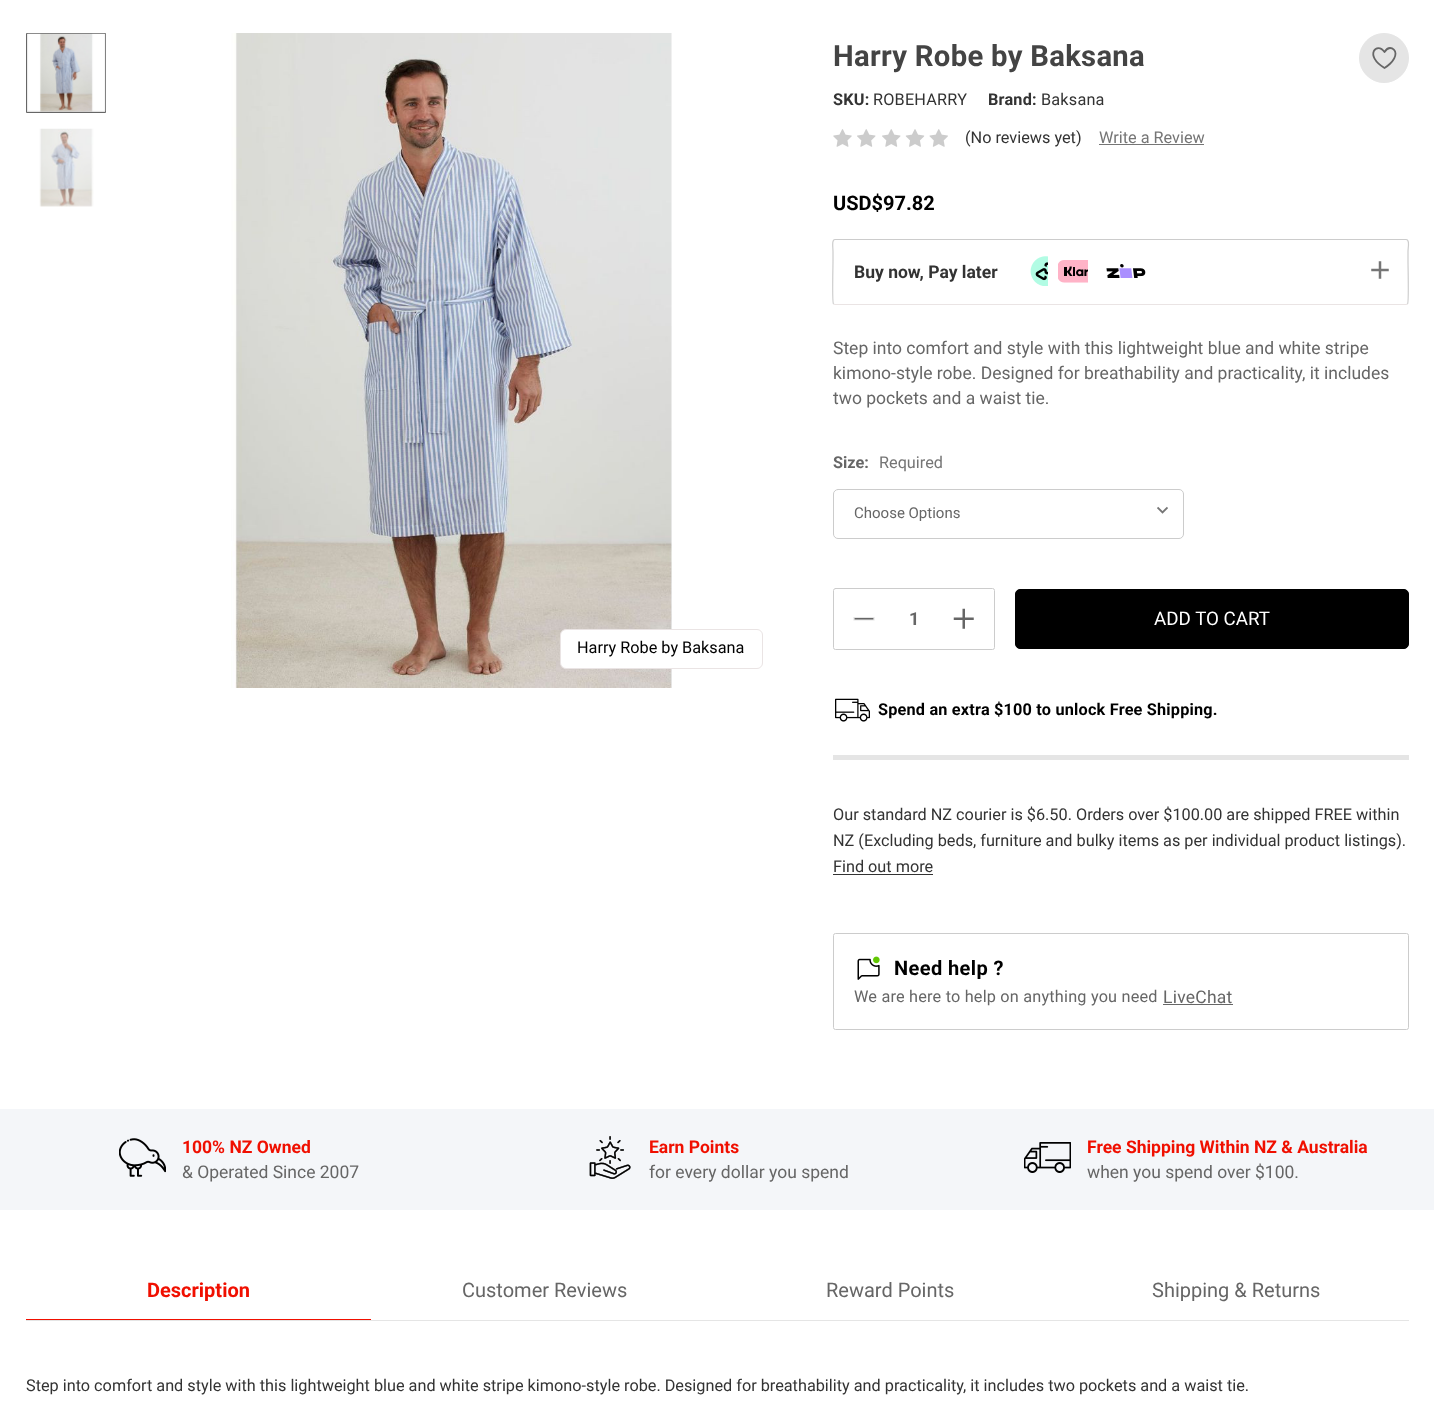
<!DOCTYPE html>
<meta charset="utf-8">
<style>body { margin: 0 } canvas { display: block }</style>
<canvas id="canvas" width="1434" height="1405"></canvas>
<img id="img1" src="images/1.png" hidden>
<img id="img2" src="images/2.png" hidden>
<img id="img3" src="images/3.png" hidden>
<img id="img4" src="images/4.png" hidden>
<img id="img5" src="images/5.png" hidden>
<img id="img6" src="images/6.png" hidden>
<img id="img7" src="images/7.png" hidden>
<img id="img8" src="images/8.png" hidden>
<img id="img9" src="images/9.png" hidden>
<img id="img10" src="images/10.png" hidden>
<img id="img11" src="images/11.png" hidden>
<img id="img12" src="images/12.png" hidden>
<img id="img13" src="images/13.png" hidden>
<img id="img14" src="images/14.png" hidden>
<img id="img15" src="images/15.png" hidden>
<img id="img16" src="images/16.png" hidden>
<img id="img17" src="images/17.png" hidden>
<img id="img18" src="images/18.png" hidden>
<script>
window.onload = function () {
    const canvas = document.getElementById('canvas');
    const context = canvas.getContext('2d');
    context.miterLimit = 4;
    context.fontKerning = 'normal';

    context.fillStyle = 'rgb(255, 255, 255)';
    context.fillRect(0, 0, 1434, 1405);
    context.fillStyle = 'rgb(211, 211, 211)';
    context.beginPath();
    context.rect(26.5, 33.5, 79, 79);
    context.fill();
    context.strokeStyle = 'rgb(102, 102, 102)';
    context.stroke();
    context.drawImage(document.getElementById('img1'), 27, 33, 79, 79);
    context.drawImage(document.getElementById('img2'), 39, 128, 55, 79);
    context.drawImage(document.getElementById('img3'), 231, 33, 441, 655);
    context.fillStyle = 'rgb(255, 255, 255)';
    context.beginPath();
    context.roundRect(560.5, 629.5, 202, 39, 5.5);
    context.fill();
    context.strokeStyle = 'rgb(234, 228, 228)';
    context.stroke();
    context.drawImage(document.getElementById('img4'), 833, 129, 19, 18);
    context.drawImage(document.getElementById('img5'), 857, 129, 19, 18);
    context.drawImage(document.getElementById('img5'), 882, 129, 19, 18);
    context.drawImage(document.getElementById('img6'), 905, 129, 20, 18);
    context.drawImage(document.getElementById('img7'), 929, 129, 19, 18);
    context.fillStyle = 'rgb(117, 117, 117)';
    context.fillRect(1099, 144, 105, 1);
    context.beginPath();
    context.moveTo(1407.5, 304);
    context.lineTo(1406, 304.5);
    context.lineTo(835, 304.5);
    context.lineTo(833.5, 304);
    context.lineWidth = 1.2;
    context.stroke();
    context.beginPath();
    context.moveTo(833.5, 304);
    context.bezierCurveTo(832, 302.5, 833, 266.5, 833, 261.5);
    context.lineTo(833, 251.5);
    context.bezierCurveTo(833, 247.5, 831.5, 239.5, 835, 239.5);
    context.lineTo(1406, 239.5);
    context.bezierCurveTo(1410, 239.5, 1408, 247.5, 1408, 251.5);
    context.lineTo(1408, 261.5);
    context.bezierCurveTo(1408, 266.5, 1409, 302.5, 1407.5, 304);
    context.strokeStyle = 'rgb(204, 204, 204)';
    context.stroke();
    context.drawImage(document.getElementById('img8'), 1030, 256, 18, 30);
    context.drawImage(document.getElementById('img9'), 1058, 260, 30, 23);
    context.drawImage(document.getElementById('img10'), 1106, 264, 40, 14);
    context.drawImage(document.getElementById('img11'), 1371, 261, 18, 18);
    context.fillStyle = 'rgb(229, 229, 229)';
    context.beginPath();
    context.arc(1384, 58, 24.5, 0, 2 * Math.PI);
    context.fill();
    context.strokeStyle = 'rgb(229, 229, 229)';
    context.lineWidth = 1;
    context.stroke();
    context.beginPath();
    context.moveTo(1395.5, 53.5);
    context.bezierCurveTo(1395.5, 61.5, 1384.5, 68, 1384.5, 68);
    context.bezierCurveTo(1363.5, 55.5, 1377, 41, 1384.5, 52);
    context.bezierCurveTo(1384.5, 52, 1387, 48, 1390, 48);
    context.bezierCurveTo(1393, 48, 1395.5, 50.5, 1395.5, 53.5);
    context.closePath();
    context.strokeStyle = 'rgb(102, 102, 102)';
    context.lineWidth = 1.8;
    context.lineCap = 'round';
    context.lineJoin = 'round';
    context.stroke();
    context.drawImage(document.getElementById('img12'), 1157, 506, 11, 8);
    context.beginPath();
    context.roundRect(833.5, 489.5, 350, 49, 4.5);
    context.strokeStyle = 'rgb(204, 204, 204)';
    context.lineWidth = 1;
    context.lineJoin = 'miter';
    context.stroke();
    context.beginPath();
    context.roundRect(833.5, 588.5, 161, 61, 2);
    context.stroke();
    context.fillStyle = 'rgb(102, 102, 102)';
    context.fillRect(854, 618, 20, 2);
    context.beginPath();
    context.moveTo(874, 620);
    context.lineTo(854, 620);
    context.lineTo(854, 617.5);
    context.lineTo(874, 617.5);
    context.closePath();
    context.strokeStyle = 'rgb(229, 229, 229)';
    context.lineWidth = 1.2;
    context.lineCap = 'butt';
    context.stroke();
    context.drawImage(document.getElementById('img13'), 953, 608, 21, 21);
    context.fillStyle = 'rgb(0, 0, 0)';
    context.beginPath();
    context.roundRect(1015.5, 589.5, 393, 59, 4.5);
    context.fill();
    context.strokeStyle = 'rgb(0, 0, 0)';
    context.lineWidth = 1;
    context.stroke();
    context.drawImage(document.getElementById('img14'), 835, 698, 35, 24);
    context.fillStyle = 'rgb(229, 229, 229)';
    context.fillRect(833, 755, 576, 5);
    context.fillStyle = 'rgb(51, 51, 51)';
    context.fillRect(833, 874, 100, 1);
    context.beginPath();
    context.roundRect(833.5, 933.5, 575, 96, 2);
    context.strokeStyle = 'rgb(204, 204, 204)';
    context.stroke();
    context.drawImage(document.getElementById('img15'), 857, 956, 23, 24);
    context.fillStyle = 'rgb(102, 102, 102)';
    context.fillRect(1163, 1004, 70, 1);
    context.fillStyle = 'rgb(244, 246, 249)';
    context.fillRect(0, 1109, 1434, 101);
    context.drawImage(document.getElementById('img16'), 119, 1138, 47, 39);
    context.drawImage(document.getElementById('img17'), 589, 1136, 42, 43);
    context.drawImage(document.getElementById('img18'), 1024, 1142, 47, 31);
    context.fillStyle = 'rgb(229, 229, 229)';
    context.fillRect(26, 1320, 1383, 1);
    context.fillStyle = 'rgb(240, 15, 0)';
    context.fillRect(26, 1319, 345, 1);
    context.font = '16.25px Roboto';
    context.fillStyle = 'rgb(0, 0, 0)';
    context.fillText('Harry Robe by Baksana', 577, 653);
    context.letterSpacing = '0.3px';
    context.font = 'bold 29.25px Roboto';
    context.fillStyle = 'rgb(68, 68, 68)';
    context.fillText('Harry Robe by Baksana', 833, 66);
    context.letterSpacing = '0.2px';
    context.font = 'bold 16.25px Roboto';
    context.fillStyle = 'rgb(51, 51, 51)';
    context.fillText('SKU:', 833, 105);
    context.font = '16.25px Roboto';
    context.fillText('ROBEHARRY', 873, 105);
    context.font = 'bold 16.25px Roboto';
    context.fillText('Brand:', 988, 105);
    context.font = '16.25px Roboto';
    context.fillText('Baksana', 1041, 105);
    context.letterSpacing = '0px';
    context.fillText('(No reviews yet)', 965, 143);
    context.fillStyle = 'rgb(117, 117, 117)';
    context.fillText('Write a Review', 1099, 143);
    context.font = 'bold 20px Roboto';
    context.fillStyle = 'rgb(0, 0, 0)';
    context.fillText('USD$97.82', 833, 210);
    context.font = 'bold 17.5px Roboto';
    context.fillStyle = 'rgb(51, 51, 51)';
    context.fillText('Buy now, Pay later', 854, 278);
    context.font = '17.5px Roboto';
    context.fillStyle = 'rgb(102, 102, 102)';
    context.fillText('Step into comfort and style with this lightweight blue and white stripe', 833, 354);
    context.fillText('kimono-style robe. Designed for breathability and practicality, it includes', 833, 379);
    context.fillText('two pockets and a waist tie.', 833, 404);
    context.font = 'bold 16.25px Roboto';
    context.fillText('Size:', 833, 468);
    context.font = '16.25px Roboto';
    context.fillStyle = 'rgb(117, 117, 117)';
    context.fillText('Required', 879, 468);
    context.font = '15px Roboto';
    context.fillStyle = 'rgb(102, 102, 102)';
    context.fillText('Choose Options', 854, 518);
    context.font = 'bold 18px Roboto';
    context.fillText('1', 909, 625);
    context.font = '18.75px Roboto';
    context.fillStyle = 'rgb(255, 255, 255)';
    context.fillText('ADD TO CART', 1154, 625);
    context.letterSpacing = '0.2px';
    context.font = 'bold 16.25px Roboto';
    context.fillStyle = 'rgb(0, 0, 0)';
    context.fillText('Spend an extra $100 to unlock Free Shipping.', 878, 715);
    context.letterSpacing = '0px';
    context.font = '16.25px Roboto';
    context.fillStyle = 'rgb(51, 51, 51)';
    context.fillText('Our standard NZ courier is $6.50. Orders over $100.00 are shipped FREE within', 833, 820);
    context.fillText('NZ (Excluding beds, furniture and bulky items as per individual product listings).', 833, 846);
    context.fillText('Find out more', 833, 872);
    context.letterSpacing = '0.4px';
    context.font = 'bold 20px Roboto';
    context.fillStyle = 'rgb(0, 0, 0)';
    context.fillText('Need help ?', 894, 975);
    context.letterSpacing = '0.2px';
    context.font = '16.25px Roboto';
    context.fillStyle = 'rgb(102, 102, 102)';
    context.fillText('We are here to help on anything you need', 854, 1002);
    context.letterSpacing = '0.25px';
    context.font = '17.5px Roboto';
    context.fillText('LiveChat', 1163, 1003);
    context.letterSpacing = '0px';
    context.font = 'bold 17.5px Roboto';
    context.fillStyle = 'rgb(240, 15, 0)';
    context.fillText('100% NZ Owned', 182, 1153);
    context.font = '17.5px Roboto';
    context.fillStyle = 'rgb(102, 102, 102)';
    context.fillText('& Operated Since 2007', 182, 1178);
    context.font = 'bold 17.5px Roboto';
    context.fillStyle = 'rgb(240, 15, 0)';
    context.fillText('Earn Points', 649, 1153);
    context.font = '17.5px Roboto';
    context.fillStyle = 'rgb(102, 102, 102)';
    context.fillText('for every dollar you spend', 649, 1178);
    context.font = 'bold 17.5px Roboto';
    context.fillStyle = 'rgb(240, 15, 0)';
    context.fillText('Free Shipping Within NZ & Australia', 1087, 1153);
    context.font = '17.5px Roboto';
    context.fillStyle = 'rgb(102, 102, 102)';
    context.fillText('when you spend over $100.', 1087, 1178);
    context.font = 'bold 20px Roboto';
    context.fillStyle = 'rgb(240, 15, 0)';
    context.fillText('Description', 147, 1297);
    context.font = '20px Roboto';
    context.fillStyle = 'rgb(102, 102, 102)';
    context.fillText('Customer Reviews', 462, 1297);
    context.fillText('Reward Points', 826, 1297);
    context.fillText('Shipping & Returns', 1152, 1297);
    context.font = '16.25px Roboto';
    context.fillStyle = 'rgb(51, 51, 51)';
    context.fillText('Step into comfort and style with this lightweight blue and white stripe kimono-style robe. Designed for breathability and practicality, it includes two pockets and a waist tie.', 26, 1391);
};
</script>
